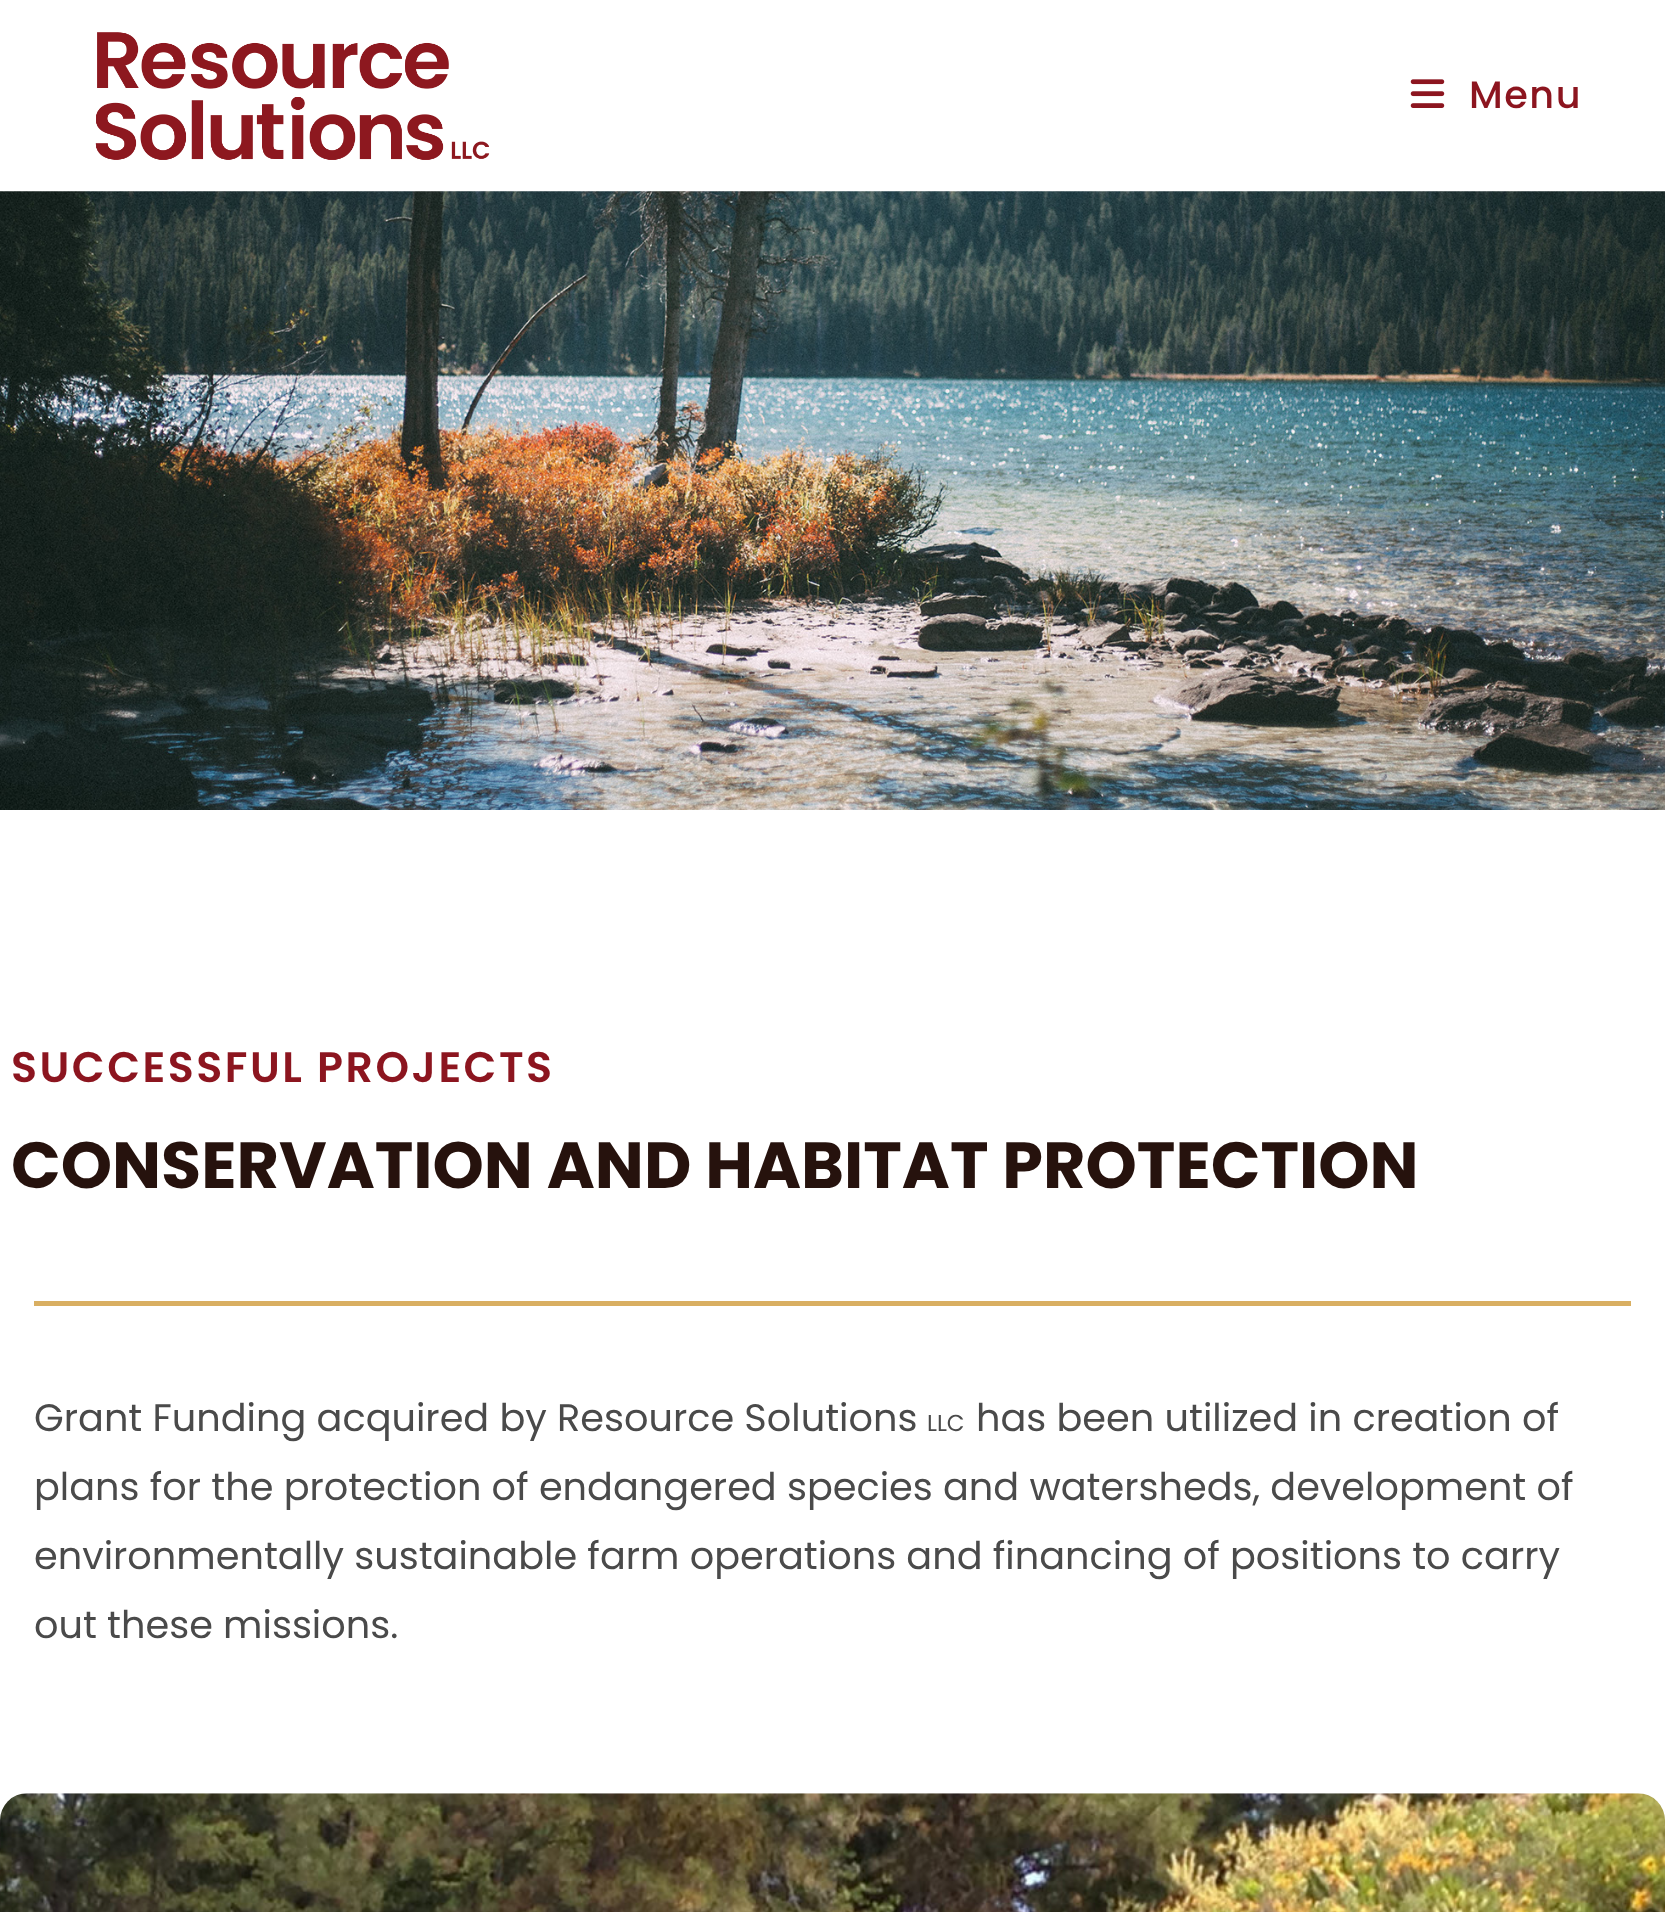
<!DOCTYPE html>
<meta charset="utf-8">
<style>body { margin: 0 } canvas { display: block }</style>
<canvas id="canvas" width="1665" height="1912"></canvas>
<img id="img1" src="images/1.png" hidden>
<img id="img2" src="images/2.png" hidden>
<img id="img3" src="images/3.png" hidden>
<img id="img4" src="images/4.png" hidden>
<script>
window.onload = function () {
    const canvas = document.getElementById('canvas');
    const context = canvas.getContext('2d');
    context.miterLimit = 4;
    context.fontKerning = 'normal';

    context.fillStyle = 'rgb(255, 255, 255)';
    context.fillRect(0, 0, 1665, 1912);
    context.drawImage(document.getElementById('img1'), 95, 32, 395, 128);
    context.drawImage(document.getElementById('img2'), 1410, 79, 35, 29);
    context.drawImage(document.getElementById('img3'), 0, 191, 1665, 619);
    context.fillStyle = 'rgb(217, 175, 98)';
    context.fillRect(34, 1301, 1597, 5);
    context.drawImage(document.getElementById('img4'), 0, 1793, 1665, 119);
    context.letterSpacing = '1.5px';
    context.font = '500 38.25px Poppins';
    context.fillStyle = 'rgb(140, 21, 31)';
    context.fillText('Menu', 1469, 108);
    context.letterSpacing = '2.5px';
    context.font = '600 42.75px Poppins';
    context.fillText('SUCCESSFUL PROJECTS', 11, 1082);
    context.letterSpacing = '0px';
    context.font = 'bold 65.25px Poppins';
    context.fillStyle = 'rgb(38, 18, 13)';
    context.fillText('CONSERVATION AND HABITAT PROTECTION', 11, 1188);
    context.font = '38.25px Poppins';
    context.fillStyle = 'rgb(74, 74, 74)';
    context.fillText('Grant Funding acquired by Resource Solutions', 34, 1431);
    context.font = '23px Poppins';
    context.fillText('LLC', 927, 1431);
    context.font = '38.25px Poppins';
    context.fillText('has been utilized in creation of', 976, 1431);
    context.fillText('plans for the protection of endangered species and watersheds, development of', 34, 1500);
    context.fillText('environmentally sustainable farm operations and financing of positions to carry', 34, 1569);
    context.fillText('out these missions.', 34, 1638);
};
</script>
